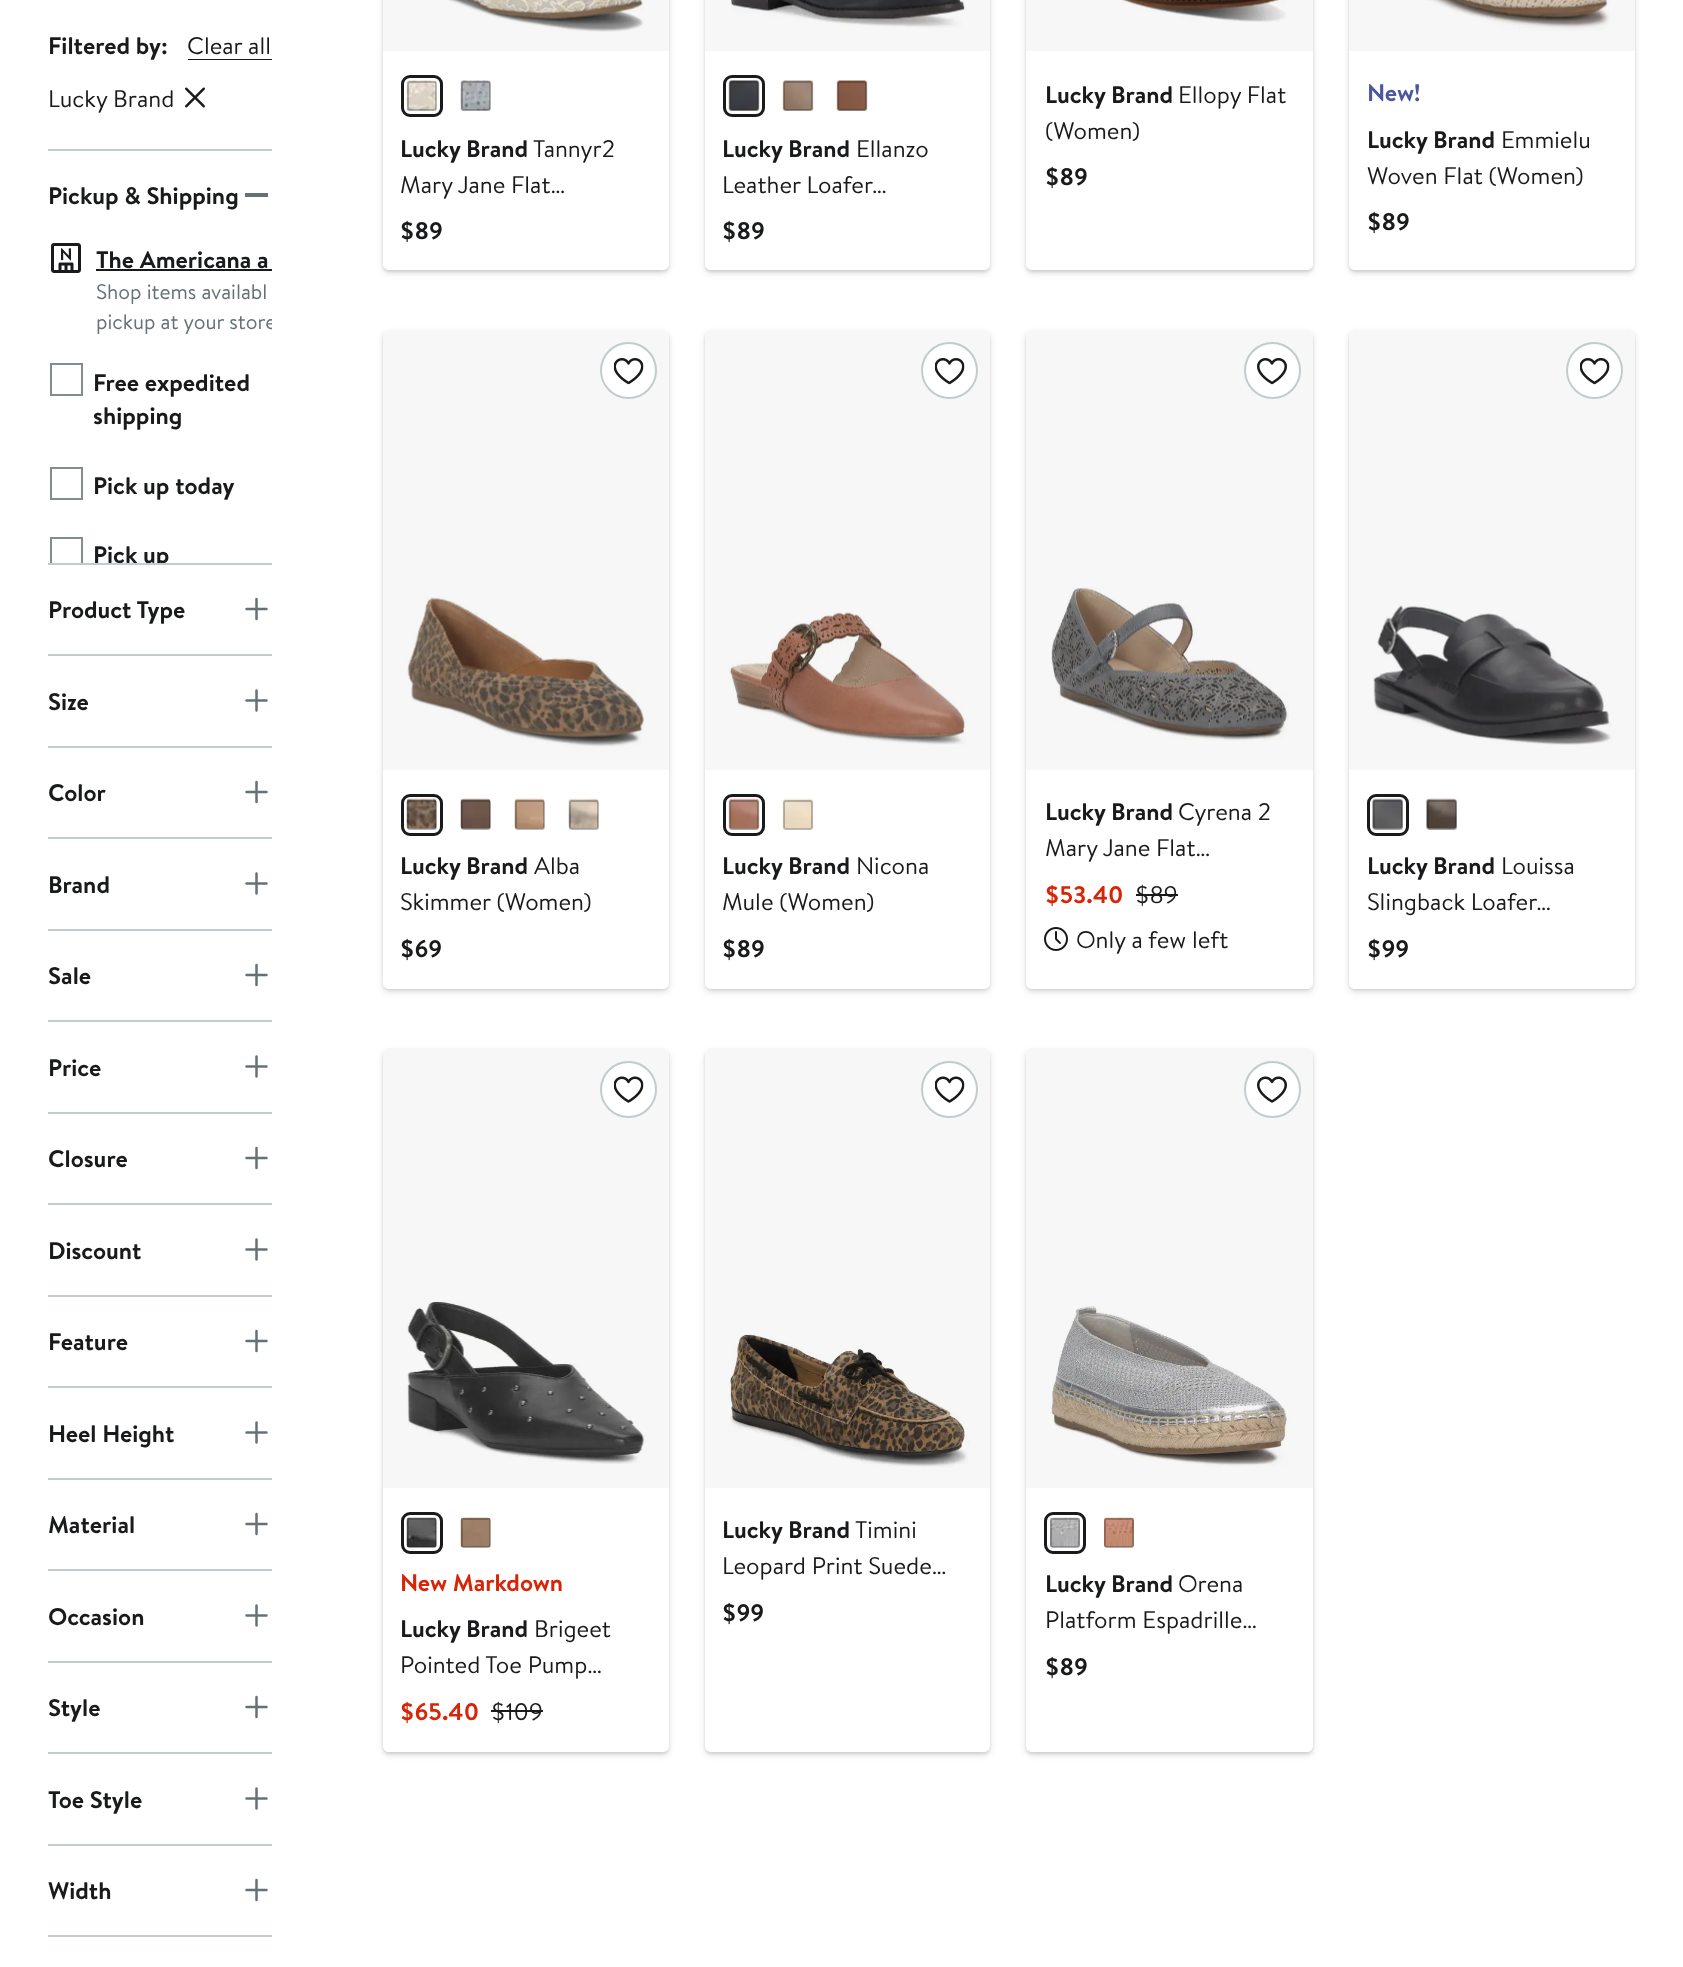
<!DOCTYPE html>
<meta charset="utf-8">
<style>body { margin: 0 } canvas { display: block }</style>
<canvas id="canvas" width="1683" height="1967"></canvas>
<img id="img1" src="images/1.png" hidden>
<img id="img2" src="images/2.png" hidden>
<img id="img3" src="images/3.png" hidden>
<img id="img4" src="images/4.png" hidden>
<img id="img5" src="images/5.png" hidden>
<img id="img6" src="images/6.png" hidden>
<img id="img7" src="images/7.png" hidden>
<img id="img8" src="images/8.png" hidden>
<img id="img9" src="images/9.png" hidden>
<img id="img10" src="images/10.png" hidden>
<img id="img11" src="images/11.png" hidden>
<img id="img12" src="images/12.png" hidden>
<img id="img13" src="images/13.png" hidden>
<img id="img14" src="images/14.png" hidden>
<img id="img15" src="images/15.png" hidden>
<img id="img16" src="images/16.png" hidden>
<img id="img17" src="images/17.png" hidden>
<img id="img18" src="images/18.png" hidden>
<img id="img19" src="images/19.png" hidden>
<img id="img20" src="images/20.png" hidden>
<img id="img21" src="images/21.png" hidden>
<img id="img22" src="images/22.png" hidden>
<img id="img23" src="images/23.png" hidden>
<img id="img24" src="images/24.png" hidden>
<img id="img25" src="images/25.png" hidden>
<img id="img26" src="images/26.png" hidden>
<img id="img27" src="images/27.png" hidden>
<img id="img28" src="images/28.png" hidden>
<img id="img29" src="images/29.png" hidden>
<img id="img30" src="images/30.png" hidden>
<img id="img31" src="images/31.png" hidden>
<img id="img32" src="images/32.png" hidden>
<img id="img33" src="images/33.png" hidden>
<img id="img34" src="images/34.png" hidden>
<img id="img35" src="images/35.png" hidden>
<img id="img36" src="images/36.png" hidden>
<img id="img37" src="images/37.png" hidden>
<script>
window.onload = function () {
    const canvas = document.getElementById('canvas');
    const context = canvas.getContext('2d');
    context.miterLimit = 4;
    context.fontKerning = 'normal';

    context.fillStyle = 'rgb(255, 255, 255)';
    context.fillRect(0, 0, 1683, 1967);
    context.fillStyle = 'rgb(25, 26, 27)';
    context.fillRect(188, 59, 84, 1);
    context.drawImage(document.getElementById('img1'), 185, 87, 20, 21);
    context.fillStyle = 'rgb(194, 203, 205)';
    context.fillRect(48, 149, 224, 2);
    context.fillRect(48, 563, 224, 2);
    context.fillStyle = 'rgb(100, 113, 117)';
    context.fillRect(245, 193, 23, 4);
    context.drawImage(document.getElementById('img2'), 51, 243, 30, 30);
    context.fillStyle = 'rgb(25, 26, 27)';
    context.fillRect(96, 269, 176, 2);
    context.strokeStyle = 'rgb(131, 141, 145)';
    context.lineWidth = 2;
    context.strokeRect(51, 364, 31, 31);
    context.strokeRect(51, 468, 31, 31);
    context.save();
    context.beginPath();
    context.rect(48, 240, 224, 323);
    context.clip();
    context.strokeRect(51, 538, 31, 31);
    context.restore();
    context.fillStyle = 'rgb(194, 203, 205)';
    context.fillRect(48, 654, 224, 2);
    context.drawImage(document.getElementById('img3'), 245, 597, 23, 24);
    context.fillRect(48, 746, 224, 2);
    context.drawImage(document.getElementById('img4'), 245, 689, 23, 23);
    context.fillRect(48, 837, 224, 2);
    context.drawImage(document.getElementById('img3'), 245, 780, 23, 24);
    context.fillRect(48, 929, 224, 2);
    context.drawImage(document.getElementById('img4'), 245, 872, 23, 23);
    context.fillRect(48, 1020, 224, 2);
    context.drawImage(document.getElementById('img3'), 245, 963, 23, 24);
    context.fillRect(48, 1112, 224, 2);
    context.drawImage(document.getElementById('img4'), 245, 1055, 23, 23);
    context.fillRect(48, 1203, 224, 2);
    context.drawImage(document.getElementById('img3'), 245, 1146, 23, 24);
    context.fillRect(48, 1295, 224, 2);
    context.drawImage(document.getElementById('img4'), 245, 1238, 23, 23);
    context.fillRect(48, 1386, 224, 2);
    context.drawImage(document.getElementById('img3'), 245, 1329, 23, 24);
    context.fillRect(48, 1478, 224, 2);
    context.drawImage(document.getElementById('img4'), 245, 1421, 23, 23);
    context.fillRect(48, 1569, 224, 2);
    context.drawImage(document.getElementById('img3'), 245, 1512, 23, 24);
    context.fillRect(48, 1661, 224, 2);
    context.drawImage(document.getElementById('img4'), 245, 1604, 23, 23);
    context.fillRect(48, 1752, 224, 2);
    context.drawImage(document.getElementById('img3'), 245, 1695, 23, 24);
    context.fillRect(48, 1844, 224, 2);
    context.drawImage(document.getElementById('img4'), 245, 1787, 23, 23);
    context.fillRect(48, 1935, 224, 2);
    context.drawImage(document.getElementById('img3'), 245, 1878, 23, 24);
    context.save();
    context.beginPath();
    context.moveTo(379, 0);
    context.lineTo(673, 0);
    context.lineTo(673, 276);
    context.lineTo(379, 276);
    context.closePath();
    context.moveTo(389, -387);
    context.lineTo(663, -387);
    context.bezierCurveTo(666.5, -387, 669, -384.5, 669, -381);
    context.lineTo(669, 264);
    context.bezierCurveTo(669, 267.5, 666.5, 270, 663, 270);
    context.lineTo(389, 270);
    context.bezierCurveTo(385.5, 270, 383, 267.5, 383, 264);
    context.lineTo(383, -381);
    context.bezierCurveTo(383, -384.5, 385.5, -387, 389, -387);
    context.closePath();
    context.clip('evenodd');
    context.fillStyle = 'rgba(25, 26, 27, 0.09)';
    context.filter = 'blur(1px)';
    context.beginPath();
    context.roundRect(383, -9, 286, 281, 6);
    context.fill();
    context.filter = 'none';
    context.restore();
    context.save();
    context.beginPath();
    context.moveTo(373, 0);
    context.lineTo(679, 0);
    context.lineTo(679, 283);
    context.lineTo(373, 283);
    context.closePath();
    context.moveTo(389, -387);
    context.lineTo(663, -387);
    context.bezierCurveTo(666.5, -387, 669, -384.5, 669, -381);
    context.lineTo(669, 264);
    context.bezierCurveTo(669, 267.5, 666.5, 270, 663, 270);
    context.lineTo(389, 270);
    context.bezierCurveTo(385.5, 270, 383, 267.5, 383, 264);
    context.lineTo(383, -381);
    context.bezierCurveTo(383, -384.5, 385.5, -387, 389, -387);
    context.closePath();
    context.clip('evenodd');
    context.fillStyle = 'rgba(25, 26, 27, 0.15)';
    context.filter = 'blur(3px)';
    context.beginPath();
    context.roundRect(383, -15, 286, 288, 6);
    context.fill();
    context.filter = 'none';
    context.restore();
    context.fillStyle = 'rgb(247, 247, 247)';
    context.fillRect(383, 0, 286, 51);
    context.drawImage(document.getElementById('img5'), 447, 0, 197, 32);
    context.drawImage(document.getElementById('img6'), 406, 80, 31, 31);
    context.beginPath();
    context.roundRect(408, 82, 28, 28, 2);
    context.strokeStyle = 'rgba(25, 26, 27, 0.27)';
    context.stroke();
    context.beginPath();
    context.roundRect(402.5, 76.5, 39, 39, 7.5);
    context.strokeStyle = 'rgb(25, 26, 27)';
    context.lineWidth = 3;
    context.stroke();
    context.drawImage(document.getElementById('img7'), 460, 80, 31, 31);
    context.beginPath();
    context.roundRect(462, 82, 28, 28, 2);
    context.strokeStyle = 'rgba(25, 26, 27, 0.27)';
    context.lineWidth = 2;
    context.stroke();
    context.save();
    context.beginPath();
    context.moveTo(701, 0);
    context.lineTo(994, 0);
    context.lineTo(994, 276);
    context.lineTo(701, 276);
    context.closePath();
    context.moveTo(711, -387);
    context.lineTo(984, -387);
    context.bezierCurveTo(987.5, -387, 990, -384.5, 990, -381);
    context.lineTo(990, 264);
    context.bezierCurveTo(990, 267.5, 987.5, 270, 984, 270);
    context.lineTo(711, 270);
    context.bezierCurveTo(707.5, 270, 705, 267.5, 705, 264);
    context.lineTo(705, -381);
    context.bezierCurveTo(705, -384.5, 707.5, -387, 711, -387);
    context.closePath();
    context.clip('evenodd');
    context.fillStyle = 'rgba(25, 26, 27, 0.09)';
    context.filter = 'blur(1px)';
    context.beginPath();
    context.roundRect(705, -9, 285, 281, 6);
    context.fill();
    context.filter = 'none';
    context.restore();
    context.save();
    context.beginPath();
    context.moveTo(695, 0);
    context.lineTo(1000, 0);
    context.lineTo(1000, 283);
    context.lineTo(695, 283);
    context.closePath();
    context.moveTo(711, -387);
    context.lineTo(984, -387);
    context.bezierCurveTo(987.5, -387, 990, -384.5, 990, -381);
    context.lineTo(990, 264);
    context.bezierCurveTo(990, 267.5, 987.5, 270, 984, 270);
    context.lineTo(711, 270);
    context.bezierCurveTo(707.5, 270, 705, 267.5, 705, 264);
    context.lineTo(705, -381);
    context.bezierCurveTo(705, -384.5, 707.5, -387, 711, -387);
    context.closePath();
    context.clip('evenodd');
    context.fillStyle = 'rgba(25, 26, 27, 0.15)';
    context.filter = 'blur(3px)';
    context.beginPath();
    context.roundRect(705, -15, 285, 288, 6);
    context.fill();
    context.filter = 'none';
    context.restore();
    context.fillRect(705, 0, 285, 51);
    context.drawImage(document.getElementById('img8'), 731, 0, 235, 28);
    context.drawImage(document.getElementById('img9'), 728, 80, 32, 31);
    context.beginPath();
    context.roundRect(730, 82, 28, 28, 2);
    context.stroke();
    context.beginPath();
    context.roundRect(724.5, 76.5, 39, 39, 7.5);
    context.strokeStyle = 'rgb(25, 26, 27)';
    context.lineWidth = 3;
    context.stroke();
    context.drawImage(document.getElementById('img10'), 782, 80, 32, 31);
    context.beginPath();
    context.roundRect(784, 82, 28, 28, 2);
    context.strokeStyle = 'rgba(25, 26, 27, 0.27)';
    context.lineWidth = 2;
    context.stroke();
    context.drawImage(document.getElementById('img11'), 836, 80, 32, 31);
    context.beginPath();
    context.roundRect(838, 82, 28, 28, 2);
    context.stroke();
    context.save();
    context.beginPath();
    context.moveTo(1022, 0);
    context.lineTo(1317, 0);
    context.lineTo(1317, 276);
    context.lineTo(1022, 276);
    context.closePath();
    context.moveTo(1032, -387);
    context.lineTo(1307, -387);
    context.bezierCurveTo(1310.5, -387, 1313, -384.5, 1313, -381);
    context.lineTo(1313, 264);
    context.bezierCurveTo(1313, 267.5, 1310.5, 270, 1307, 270);
    context.lineTo(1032, 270);
    context.bezierCurveTo(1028.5, 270, 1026, 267.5, 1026, 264);
    context.lineTo(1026, -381);
    context.bezierCurveTo(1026, -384.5, 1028.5, -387, 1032, -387);
    context.closePath();
    context.clip('evenodd');
    context.fillStyle = 'rgba(25, 26, 27, 0.09)';
    context.filter = 'blur(1px)';
    context.beginPath();
    context.roundRect(1026, -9, 287, 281, 6);
    context.fill();
    context.filter = 'none';
    context.restore();
    context.save();
    context.beginPath();
    context.moveTo(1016, 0);
    context.lineTo(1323, 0);
    context.lineTo(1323, 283);
    context.lineTo(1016, 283);
    context.closePath();
    context.moveTo(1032, -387);
    context.lineTo(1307, -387);
    context.bezierCurveTo(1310.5, -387, 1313, -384.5, 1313, -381);
    context.lineTo(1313, 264);
    context.bezierCurveTo(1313, 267.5, 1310.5, 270, 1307, 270);
    context.lineTo(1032, 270);
    context.bezierCurveTo(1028.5, 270, 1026, 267.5, 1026, 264);
    context.lineTo(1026, -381);
    context.bezierCurveTo(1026, -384.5, 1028.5, -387, 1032, -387);
    context.closePath();
    context.clip('evenodd');
    context.fillStyle = 'rgba(25, 26, 27, 0.15)';
    context.filter = 'blur(3px)';
    context.beginPath();
    context.roundRect(1026, -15, 287, 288, 6);
    context.fill();
    context.filter = 'none';
    context.restore();
    context.fillRect(1026, 0, 287, 51);
    context.drawImage(document.getElementById('img12'), 1121, 0, 165, 22);
    context.save();
    context.beginPath();
    context.moveTo(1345, 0);
    context.lineTo(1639, 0);
    context.lineTo(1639, 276);
    context.lineTo(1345, 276);
    context.closePath();
    context.moveTo(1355, -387);
    context.lineTo(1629, -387);
    context.bezierCurveTo(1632.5, -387, 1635, -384.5, 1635, -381);
    context.lineTo(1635, 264);
    context.bezierCurveTo(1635, 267.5, 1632.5, 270, 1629, 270);
    context.lineTo(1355, 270);
    context.bezierCurveTo(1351.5, 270, 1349, 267.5, 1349, 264);
    context.lineTo(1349, -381);
    context.bezierCurveTo(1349, -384.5, 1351.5, -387, 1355, -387);
    context.closePath();
    context.clip('evenodd');
    context.fillStyle = 'rgba(25, 26, 27, 0.09)';
    context.filter = 'blur(1px)';
    context.beginPath();
    context.roundRect(1349, -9, 286, 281, 6);
    context.fill();
    context.filter = 'none';
    context.restore();
    context.save();
    context.beginPath();
    context.moveTo(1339, 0);
    context.lineTo(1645, 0);
    context.lineTo(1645, 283);
    context.lineTo(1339, 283);
    context.closePath();
    context.moveTo(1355, -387);
    context.lineTo(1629, -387);
    context.bezierCurveTo(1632.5, -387, 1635, -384.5, 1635, -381);
    context.lineTo(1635, 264);
    context.bezierCurveTo(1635, 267.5, 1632.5, 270, 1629, 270);
    context.lineTo(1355, 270);
    context.bezierCurveTo(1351.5, 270, 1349, 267.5, 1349, 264);
    context.lineTo(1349, -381);
    context.bezierCurveTo(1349, -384.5, 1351.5, -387, 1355, -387);
    context.closePath();
    context.clip('evenodd');
    context.fillStyle = 'rgba(25, 26, 27, 0.15)';
    context.filter = 'blur(3px)';
    context.beginPath();
    context.roundRect(1349, -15, 286, 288, 6);
    context.fill();
    context.filter = 'none';
    context.restore();
    context.fillRect(1349, 0, 286, 51);
    context.drawImage(document.getElementById('img13'), 1426, 0, 184, 31);
    context.save();
    context.beginPath();
    context.moveTo(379, 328);
    context.lineTo(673, 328);
    context.lineTo(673, 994);
    context.lineTo(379, 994);
    context.closePath();
    context.moveTo(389, 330);
    context.lineTo(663, 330);
    context.bezierCurveTo(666.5, 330, 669, 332.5, 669, 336);
    context.lineTo(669, 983);
    context.bezierCurveTo(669, 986.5, 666.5, 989, 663, 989);
    context.lineTo(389, 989);
    context.bezierCurveTo(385.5, 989, 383, 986.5, 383, 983);
    context.lineTo(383, 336);
    context.bezierCurveTo(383, 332.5, 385.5, 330, 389, 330);
    context.closePath();
    context.clip('evenodd');
    context.fillStyle = 'rgba(25, 26, 27, 0.09)';
    context.filter = 'blur(1px)';
    context.beginPath();
    context.roundRect(383, 332, 286, 658, 6);
    context.fill();
    context.filter = 'none';
    context.restore();
    context.save();
    context.beginPath();
    context.moveTo(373, 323);
    context.lineTo(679, 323);
    context.lineTo(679, 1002);
    context.lineTo(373, 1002);
    context.closePath();
    context.moveTo(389, 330);
    context.lineTo(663, 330);
    context.bezierCurveTo(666.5, 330, 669, 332.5, 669, 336);
    context.lineTo(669, 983);
    context.bezierCurveTo(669, 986.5, 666.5, 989, 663, 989);
    context.lineTo(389, 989);
    context.bezierCurveTo(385.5, 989, 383, 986.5, 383, 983);
    context.lineTo(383, 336);
    context.bezierCurveTo(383, 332.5, 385.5, 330, 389, 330);
    context.closePath();
    context.clip('evenodd');
    context.fillStyle = 'rgba(25, 26, 27, 0.15)';
    context.filter = 'blur(3px)';
    context.beginPath();
    context.roundRect(383, 333, 286, 659, 6);
    context.fill();
    context.filter = 'none';
    context.restore();
    context.beginPath();
    context.roundRect(383, 330, 286, 440, [6, 6, 0, 0]);
    context.fill();
    context.drawImage(document.getElementById('img14'), 383, 331, 262, 416);
    context.fillStyle = 'rgb(255, 255, 255)';
    context.beginPath();
    context.arc(628.5, 370.5, 27.5, 0, 2 * Math.PI);
    context.fill();
    context.strokeStyle = 'rgb(194, 203, 205)';
    context.stroke();
    context.drawImage(document.getElementById('img15'), 614, 358, 30, 27);
    context.drawImage(document.getElementById('img16'), 406, 798, 31, 32);
    context.beginPath();
    context.roundRect(408, 801, 28, 28, 2);
    context.strokeStyle = 'rgba(25, 26, 27, 0.27)';
    context.stroke();
    context.beginPath();
    context.roundRect(402.5, 795.5, 39, 39, 7.5);
    context.strokeStyle = 'rgb(25, 26, 27)';
    context.lineWidth = 3;
    context.stroke();
    context.drawImage(document.getElementById('img17'), 460, 798, 31, 32);
    context.beginPath();
    context.roundRect(462, 801, 28, 28, 2);
    context.strokeStyle = 'rgba(25, 26, 27, 0.27)';
    context.lineWidth = 2;
    context.stroke();
    context.drawImage(document.getElementById('img18'), 514, 798, 31, 32);
    context.beginPath();
    context.roundRect(516, 801, 28, 28, 2);
    context.stroke();
    context.drawImage(document.getElementById('img19'), 568, 798, 31, 32);
    context.beginPath();
    context.roundRect(570, 801, 28, 28, 2);
    context.stroke();
    context.save();
    context.beginPath();
    context.moveTo(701, 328);
    context.lineTo(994, 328);
    context.lineTo(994, 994);
    context.lineTo(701, 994);
    context.closePath();
    context.moveTo(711, 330);
    context.lineTo(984, 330);
    context.bezierCurveTo(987.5, 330, 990, 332.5, 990, 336);
    context.lineTo(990, 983);
    context.bezierCurveTo(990, 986.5, 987.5, 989, 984, 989);
    context.lineTo(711, 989);
    context.bezierCurveTo(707.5, 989, 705, 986.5, 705, 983);
    context.lineTo(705, 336);
    context.bezierCurveTo(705, 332.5, 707.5, 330, 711, 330);
    context.closePath();
    context.clip('evenodd');
    context.fillStyle = 'rgba(25, 26, 27, 0.09)';
    context.filter = 'blur(1px)';
    context.beginPath();
    context.roundRect(705, 332, 285, 658, 6);
    context.fill();
    context.filter = 'none';
    context.restore();
    context.save();
    context.beginPath();
    context.moveTo(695, 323);
    context.lineTo(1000, 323);
    context.lineTo(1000, 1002);
    context.lineTo(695, 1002);
    context.closePath();
    context.moveTo(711, 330);
    context.lineTo(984, 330);
    context.bezierCurveTo(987.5, 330, 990, 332.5, 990, 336);
    context.lineTo(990, 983);
    context.bezierCurveTo(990, 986.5, 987.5, 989, 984, 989);
    context.lineTo(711, 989);
    context.bezierCurveTo(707.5, 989, 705, 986.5, 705, 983);
    context.lineTo(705, 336);
    context.bezierCurveTo(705, 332.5, 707.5, 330, 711, 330);
    context.closePath();
    context.clip('evenodd');
    context.fillStyle = 'rgba(25, 26, 27, 0.15)';
    context.filter = 'blur(3px)';
    context.beginPath();
    context.roundRect(705, 333, 285, 659, 6);
    context.fill();
    context.filter = 'none';
    context.restore();
    context.fillStyle = 'rgb(247, 247, 247)';
    context.beginPath();
    context.roundRect(705, 330, 285, 440, [6, 6, 0, 0]);
    context.fill();
    context.drawImage(document.getElementById('img20'), 729, 612, 237, 133);
    context.fillStyle = 'rgb(255, 255, 255)';
    context.beginPath();
    context.arc(949.5, 370.5, 27.5, 0, 2 * Math.PI);
    context.fill();
    context.strokeStyle = 'rgb(194, 203, 205)';
    context.stroke();
    context.drawImage(document.getElementById('img15'), 935, 358, 30, 27);
    context.drawImage(document.getElementById('img21'), 728, 798, 32, 32);
    context.beginPath();
    context.roundRect(730, 801, 28, 28, 2);
    context.strokeStyle = 'rgba(25, 26, 27, 0.27)';
    context.stroke();
    context.beginPath();
    context.roundRect(724.5, 795.5, 39, 39, 7.5);
    context.strokeStyle = 'rgb(25, 26, 27)';
    context.lineWidth = 3;
    context.stroke();
    context.drawImage(document.getElementById('img22'), 782, 798, 32, 32);
    context.beginPath();
    context.roundRect(784, 801, 28, 28, 2);
    context.strokeStyle = 'rgba(25, 26, 27, 0.27)';
    context.lineWidth = 2;
    context.stroke();
    context.save();
    context.beginPath();
    context.moveTo(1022, 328);
    context.lineTo(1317, 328);
    context.lineTo(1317, 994);
    context.lineTo(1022, 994);
    context.closePath();
    context.moveTo(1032, 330);
    context.lineTo(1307, 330);
    context.bezierCurveTo(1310.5, 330, 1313, 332.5, 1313, 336);
    context.lineTo(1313, 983);
    context.bezierCurveTo(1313, 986.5, 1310.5, 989, 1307, 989);
    context.lineTo(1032, 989);
    context.bezierCurveTo(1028.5, 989, 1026, 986.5, 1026, 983);
    context.lineTo(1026, 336);
    context.bezierCurveTo(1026, 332.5, 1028.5, 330, 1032, 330);
    context.closePath();
    context.clip('evenodd');
    context.fillStyle = 'rgba(25, 26, 27, 0.09)';
    context.filter = 'blur(1px)';
    context.beginPath();
    context.roundRect(1026, 332, 287, 658, 6);
    context.fill();
    context.filter = 'none';
    context.restore();
    context.save();
    context.beginPath();
    context.moveTo(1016, 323);
    context.lineTo(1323, 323);
    context.lineTo(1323, 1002);
    context.lineTo(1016, 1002);
    context.closePath();
    context.moveTo(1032, 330);
    context.lineTo(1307, 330);
    context.bezierCurveTo(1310.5, 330, 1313, 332.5, 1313, 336);
    context.lineTo(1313, 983);
    context.bezierCurveTo(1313, 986.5, 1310.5, 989, 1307, 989);
    context.lineTo(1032, 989);
    context.bezierCurveTo(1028.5, 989, 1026, 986.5, 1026, 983);
    context.lineTo(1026, 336);
    context.bezierCurveTo(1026, 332.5, 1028.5, 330, 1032, 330);
    context.closePath();
    context.clip('evenodd');
    context.fillStyle = 'rgba(25, 26, 27, 0.15)';
    context.filter = 'blur(3px)';
    context.beginPath();
    context.roundRect(1026, 333, 287, 659, 6);
    context.fill();
    context.filter = 'none';
    context.restore();
    context.fillStyle = 'rgb(247, 247, 247)';
    context.beginPath();
    context.roundRect(1026, 330, 287, 440, [6, 6, 0, 0]);
    context.fill();
    context.drawImage(document.getElementById('img23'), 1051, 587, 238, 154);
    context.fillStyle = 'rgb(255, 255, 255)';
    context.beginPath();
    context.arc(1272.5, 370.5, 27.5, 0, 2 * Math.PI);
    context.fill();
    context.strokeStyle = 'rgb(194, 203, 205)';
    context.stroke();
    context.drawImage(document.getElementById('img24'), 1257, 358, 30, 27);
    context.fillStyle = 'rgb(25, 26, 27)';
    context.fillRect(1136, 894, 42, 2);
    context.drawImage(document.getElementById('img25'), 1044, 927, 24, 24);
    context.save();
    context.beginPath();
    context.moveTo(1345, 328);
    context.lineTo(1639, 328);
    context.lineTo(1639, 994);
    context.lineTo(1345, 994);
    context.closePath();
    context.moveTo(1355, 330);
    context.lineTo(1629, 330);
    context.bezierCurveTo(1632.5, 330, 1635, 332.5, 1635, 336);
    context.lineTo(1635, 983);
    context.bezierCurveTo(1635, 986.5, 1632.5, 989, 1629, 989);
    context.lineTo(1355, 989);
    context.bezierCurveTo(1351.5, 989, 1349, 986.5, 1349, 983);
    context.lineTo(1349, 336);
    context.bezierCurveTo(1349, 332.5, 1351.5, 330, 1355, 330);
    context.closePath();
    context.clip('evenodd');
    context.fillStyle = 'rgba(25, 26, 27, 0.09)';
    context.filter = 'blur(1px)';
    context.beginPath();
    context.roundRect(1349, 332, 286, 658, 6);
    context.fill();
    context.filter = 'none';
    context.restore();
    context.save();
    context.beginPath();
    context.moveTo(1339, 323);
    context.lineTo(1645, 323);
    context.lineTo(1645, 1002);
    context.lineTo(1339, 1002);
    context.closePath();
    context.moveTo(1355, 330);
    context.lineTo(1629, 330);
    context.bezierCurveTo(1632.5, 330, 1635, 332.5, 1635, 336);
    context.lineTo(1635, 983);
    context.bezierCurveTo(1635, 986.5, 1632.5, 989, 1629, 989);
    context.lineTo(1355, 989);
    context.bezierCurveTo(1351.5, 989, 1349, 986.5, 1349, 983);
    context.lineTo(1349, 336);
    context.bezierCurveTo(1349, 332.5, 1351.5, 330, 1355, 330);
    context.closePath();
    context.clip('evenodd');
    context.fillStyle = 'rgba(25, 26, 27, 0.15)';
    context.filter = 'blur(3px)';
    context.beginPath();
    context.roundRect(1349, 333, 286, 659, 6);
    context.fill();
    context.filter = 'none';
    context.restore();
    context.fillStyle = 'rgb(247, 247, 247)';
    context.beginPath();
    context.roundRect(1349, 330, 286, 440, [6, 6, 0, 0]);
    context.fill();
    context.drawImage(document.getElementById('img26'), 1349, 331, 263, 414);
    context.fillStyle = 'rgb(255, 255, 255)';
    context.beginPath();
    context.arc(1594.5, 370.5, 27.5, 0, 2 * Math.PI);
    context.fill();
    context.stroke();
    context.drawImage(document.getElementById('img15'), 1580, 358, 30, 27);
    context.drawImage(document.getElementById('img27'), 1372, 798, 31, 32);
    context.beginPath();
    context.roundRect(1374, 801, 28, 28, 2);
    context.strokeStyle = 'rgba(25, 26, 27, 0.27)';
    context.stroke();
    context.beginPath();
    context.roundRect(1368.5, 795.5, 39, 39, 7.5);
    context.strokeStyle = 'rgb(25, 26, 27)';
    context.lineWidth = 3;
    context.stroke();
    context.drawImage(document.getElementById('img28'), 1426, 798, 31, 32);
    context.beginPath();
    context.roundRect(1428, 801, 28, 28, 2);
    context.strokeStyle = 'rgba(25, 26, 27, 0.27)';
    context.lineWidth = 2;
    context.stroke();
    context.save();
    context.beginPath();
    context.moveTo(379, 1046);
    context.lineTo(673, 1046);
    context.lineTo(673, 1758);
    context.lineTo(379, 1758);
    context.closePath();
    context.moveTo(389, 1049);
    context.lineTo(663, 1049);
    context.bezierCurveTo(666.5, 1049, 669, 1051.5, 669, 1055);
    context.lineTo(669, 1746);
    context.bezierCurveTo(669, 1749.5, 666.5, 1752, 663, 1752);
    context.lineTo(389, 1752);
    context.bezierCurveTo(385.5, 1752, 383, 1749.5, 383, 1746);
    context.lineTo(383, 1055);
    context.bezierCurveTo(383, 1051.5, 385.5, 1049, 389, 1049);
    context.closePath();
    context.clip('evenodd');
    context.fillStyle = 'rgba(25, 26, 27, 0.09)';
    context.filter = 'blur(1px)';
    context.beginPath();
    context.roundRect(383, 1050, 286, 704, 6);
    context.fill();
    context.filter = 'none';
    context.restore();
    context.save();
    context.beginPath();
    context.moveTo(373, 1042);
    context.lineTo(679, 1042);
    context.lineTo(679, 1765);
    context.lineTo(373, 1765);
    context.closePath();
    context.moveTo(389, 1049);
    context.lineTo(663, 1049);
    context.bezierCurveTo(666.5, 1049, 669, 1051.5, 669, 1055);
    context.lineTo(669, 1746);
    context.bezierCurveTo(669, 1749.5, 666.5, 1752, 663, 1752);
    context.lineTo(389, 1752);
    context.bezierCurveTo(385.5, 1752, 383, 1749.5, 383, 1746);
    context.lineTo(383, 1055);
    context.bezierCurveTo(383, 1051.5, 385.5, 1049, 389, 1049);
    context.closePath();
    context.clip('evenodd');
    context.fillStyle = 'rgba(25, 26, 27, 0.15)';
    context.filter = 'blur(3px)';
    context.beginPath();
    context.roundRect(383, 1052, 286, 703, 6);
    context.fill();
    context.filter = 'none';
    context.restore();
    context.fillStyle = 'rgb(247, 247, 247)';
    context.beginPath();
    context.roundRect(383, 1049, 286, 439, [6, 6, 0, 0]);
    context.fill();
    context.drawImage(document.getElementById('img29'), 383, 1048, 283, 416);
    context.fillStyle = 'rgb(255, 255, 255)';
    context.beginPath();
    context.arc(628.5, 1089.5, 27.5, 0, 2 * Math.PI);
    context.fill();
    context.strokeStyle = 'rgb(194, 203, 205)';
    context.stroke();
    context.drawImage(document.getElementById('img30'), 614, 1076, 30, 27);
    context.drawImage(document.getElementById('img31'), 406, 1517, 31, 31);
    context.beginPath();
    context.roundRect(408, 1519, 28, 28, 2);
    context.strokeStyle = 'rgba(25, 26, 27, 0.27)';
    context.stroke();
    context.beginPath();
    context.roundRect(402.5, 1513.5, 39, 39, 7.5);
    context.strokeStyle = 'rgb(25, 26, 27)';
    context.lineWidth = 3;
    context.stroke();
    context.drawImage(document.getElementById('img32'), 460, 1517, 31, 31);
    context.beginPath();
    context.roundRect(462, 1519, 28, 28, 2);
    context.strokeStyle = 'rgba(25, 26, 27, 0.27)';
    context.lineWidth = 2;
    context.stroke();
    context.fillStyle = 'rgb(25, 26, 27)';
    context.fillRect(491, 1710, 52, 2);
    context.save();
    context.beginPath();
    context.moveTo(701, 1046);
    context.lineTo(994, 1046);
    context.lineTo(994, 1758);
    context.lineTo(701, 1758);
    context.closePath();
    context.moveTo(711, 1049);
    context.lineTo(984, 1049);
    context.bezierCurveTo(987.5, 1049, 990, 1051.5, 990, 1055);
    context.lineTo(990, 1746);
    context.bezierCurveTo(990, 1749.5, 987.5, 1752, 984, 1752);
    context.lineTo(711, 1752);
    context.bezierCurveTo(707.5, 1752, 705, 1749.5, 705, 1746);
    context.lineTo(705, 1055);
    context.bezierCurveTo(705, 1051.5, 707.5, 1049, 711, 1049);
    context.closePath();
    context.clip('evenodd');
    context.fillStyle = 'rgba(25, 26, 27, 0.09)';
    context.filter = 'blur(1px)';
    context.beginPath();
    context.roundRect(705, 1050, 285, 704, 6);
    context.fill();
    context.filter = 'none';
    context.restore();
    context.save();
    context.beginPath();
    context.moveTo(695, 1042);
    context.lineTo(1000, 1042);
    context.lineTo(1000, 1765);
    context.lineTo(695, 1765);
    context.closePath();
    context.moveTo(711, 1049);
    context.lineTo(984, 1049);
    context.bezierCurveTo(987.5, 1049, 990, 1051.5, 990, 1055);
    context.lineTo(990, 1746);
    context.bezierCurveTo(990, 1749.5, 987.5, 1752, 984, 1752);
    context.lineTo(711, 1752);
    context.bezierCurveTo(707.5, 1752, 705, 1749.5, 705, 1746);
    context.lineTo(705, 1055);
    context.bezierCurveTo(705, 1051.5, 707.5, 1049, 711, 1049);
    context.closePath();
    context.clip('evenodd');
    context.fillStyle = 'rgba(25, 26, 27, 0.15)';
    context.filter = 'blur(3px)';
    context.beginPath();
    context.roundRect(705, 1052, 285, 703, 6);
    context.fill();
    context.filter = 'none';
    context.restore();
    context.fillStyle = 'rgb(247, 247, 247)';
    context.beginPath();
    context.roundRect(705, 1049, 285, 439, [6, 6, 0, 0]);
    context.fill();
    context.drawImage(document.getElementById('img33'), 708, 1048, 279, 419);
    context.fillStyle = 'rgb(255, 255, 255)';
    context.beginPath();
    context.arc(949.5, 1089.5, 27.5, 0, 2 * Math.PI);
    context.fill();
    context.strokeStyle = 'rgb(194, 203, 205)';
    context.stroke();
    context.drawImage(document.getElementById('img30'), 935, 1076, 30, 27);
    context.save();
    context.beginPath();
    context.moveTo(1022, 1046);
    context.lineTo(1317, 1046);
    context.lineTo(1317, 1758);
    context.lineTo(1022, 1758);
    context.closePath();
    context.moveTo(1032, 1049);
    context.lineTo(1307, 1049);
    context.bezierCurveTo(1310.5, 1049, 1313, 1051.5, 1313, 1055);
    context.lineTo(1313, 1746);
    context.bezierCurveTo(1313, 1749.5, 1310.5, 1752, 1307, 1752);
    context.lineTo(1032, 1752);
    context.bezierCurveTo(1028.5, 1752, 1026, 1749.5, 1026, 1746);
    context.lineTo(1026, 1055);
    context.bezierCurveTo(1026, 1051.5, 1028.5, 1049, 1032, 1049);
    context.closePath();
    context.clip('evenodd');
    context.fillStyle = 'rgba(25, 26, 27, 0.09)';
    context.filter = 'blur(1px)';
    context.beginPath();
    context.roundRect(1026, 1050, 287, 704, 6);
    context.fill();
    context.filter = 'none';
    context.restore();
    context.save();
    context.beginPath();
    context.moveTo(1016, 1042);
    context.lineTo(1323, 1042);
    context.lineTo(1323, 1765);
    context.lineTo(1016, 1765);
    context.closePath();
    context.moveTo(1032, 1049);
    context.lineTo(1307, 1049);
    context.bezierCurveTo(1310.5, 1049, 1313, 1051.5, 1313, 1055);
    context.lineTo(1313, 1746);
    context.bezierCurveTo(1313, 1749.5, 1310.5, 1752, 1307, 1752);
    context.lineTo(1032, 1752);
    context.bezierCurveTo(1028.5, 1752, 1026, 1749.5, 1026, 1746);
    context.lineTo(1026, 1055);
    context.bezierCurveTo(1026, 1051.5, 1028.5, 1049, 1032, 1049);
    context.closePath();
    context.clip('evenodd');
    context.fillStyle = 'rgba(25, 26, 27, 0.15)';
    context.filter = 'blur(3px)';
    context.beginPath();
    context.roundRect(1026, 1052, 287, 703, 6);
    context.fill();
    context.filter = 'none';
    context.restore();
    context.fillStyle = 'rgb(247, 247, 247)';
    context.beginPath();
    context.roundRect(1026, 1049, 287, 439, [6, 6, 0, 0]);
    context.fill();
    context.drawImage(document.getElementById('img34'), 1029, 1048, 279, 419);
    context.fillStyle = 'rgb(255, 255, 255)';
    context.beginPath();
    context.arc(1272.5, 1089.5, 27.5, 0, 2 * Math.PI);
    context.fill();
    context.stroke();
    context.drawImage(document.getElementById('img35'), 1257, 1076, 30, 27);
    context.drawImage(document.getElementById('img36'), 1050, 1517, 30, 31);
    context.beginPath();
    context.roundRect(1051, 1519, 28, 28, 2);
    context.strokeStyle = 'rgba(25, 26, 27, 0.27)';
    context.stroke();
    context.beginPath();
    context.roundRect(1045.5, 1513.5, 39, 39, 7.5);
    context.strokeStyle = 'rgb(25, 26, 27)';
    context.lineWidth = 3;
    context.stroke();
    context.drawImage(document.getElementById('img37'), 1104, 1517, 30, 31);
    context.beginPath();
    context.roundRect(1105, 1519, 28, 28, 2);
    context.strokeStyle = 'rgba(25, 26, 27, 0.27)';
    context.lineWidth = 2;
    context.stroke();
    context.font = 'bold 24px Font';
    context.fillStyle = 'rgb(25, 26, 27)';
    context.fillText('Filtered by:', 48, 54);
    context.font = '24px Font';
    context.fillText('Clear all', 187, 54);
    context.fillText('Lucky Brand', 48, 107);
    context.font = 'bold 24px Font';
    context.fillText('Pickup & Shipping', 48, 204);
    context.fillText('The Americana a', 96, 268);
    context.font = '21px Font';
    context.fillStyle = 'rgb(100, 113, 117)';
    context.fillText('Shop items availabl', 96, 299);
    context.save();
    context.beginPath();
    context.rect(48, 240, 224, 323);
    context.clip();
    context.fillText('pickup at your store', 96, 329);
    context.restore();
    context.font = 'bold 24px Font';
    context.fillStyle = 'rgb(25, 26, 27)';
    context.fillText('Free expedited', 93, 391);
    context.fillText('shipping', 93, 424);
    context.fillText('Pick up today', 93, 494);
    context.save();
    context.beginPath();
    context.rect(48, 240, 224, 323);
    context.clip();
    context.fillText('Pick up', 93, 563);
    context.restore();
    context.fillText('Product Type', 48, 618);
    context.fillText('Size', 48, 710);
    context.fillText('Color', 48, 801);
    context.fillText('Brand', 48, 893);
    context.fillText('Sale', 48, 984);
    context.fillText('Price', 48, 1076);
    context.fillText('Closure', 48, 1167);
    context.fillText('Discount', 48, 1259);
    context.fillText('Feature', 48, 1350);
    context.fillText('Heel Height', 48, 1442);
    context.fillText('Material', 48, 1533);
    context.fillText('Occasion', 48, 1625);
    context.fillText('Style', 48, 1716);
    context.fillText('Toe Style', 48, 1808);
    context.fillText('Width', 48, 1899);
    context.fillText('Lucky Brand', 400, 157);
    context.font = '24px Font';
    context.fillText('Tannyr2', 533, 157);
    context.fillText('Mary Jane Flat…', 400, 193);
    context.font = 'bold 24px Font';
    context.fillText('$89', 400, 239);
    context.fillText('Lucky Brand', 722, 157);
    context.font = '24px Font';
    context.fillText('Ellanzo', 856, 157);
    context.fillText('Leather Loafer…', 722, 193);
    context.font = 'bold 24px Font';
    context.fillText('$89', 722, 239);
    context.fillText('Lucky Brand', 1045, 103);
    context.font = '24px Font';
    context.fillText('Ellopy Flat', 1178, 103);
    context.fillText('(Women)', 1045, 139);
    context.font = 'bold 24px Font';
    context.fillText('$89', 1045, 185);
    context.fillStyle = 'rgb(76, 87, 159)';
    context.fillText('New!', 1367, 101);
    context.fillStyle = 'rgb(25, 26, 27)';
    context.fillText('Lucky Brand', 1367, 148);
    context.font = '24px Font';
    context.fillText('Emmielu', 1501, 148);
    context.fillText('Woven Flat (Women)', 1367, 184);
    context.font = 'bold 24px Font';
    context.fillText('$89', 1367, 230);
    context.fillText('Lucky Brand', 400, 874);
    context.font = '24px Font';
    context.fillText('Alba', 534, 874);
    context.fillText('Skimmer (Women)', 400, 910);
    context.font = 'bold 24px Font';
    context.fillText('$69', 400, 957);
    context.fillText('Lucky Brand', 722, 874);
    context.font = '24px Font';
    context.fillText('Nicona', 856, 874);
    context.fillText('Mule (Women)', 722, 910);
    context.font = 'bold 24px Font';
    context.fillText('$89', 722, 957);
    context.fillText('Lucky Brand', 1045, 820);
    context.font = '24px Font';
    context.fillText('Cyrena 2', 1178, 820);
    context.fillText('Mary Jane Flat…', 1045, 856);
    context.font = 'bold 24px Font';
    context.fillStyle = 'rgb(216, 37, 8)';
    context.fillText('$53.40', 1045, 903);
    context.font = '24px Font';
    context.fillStyle = 'rgb(25, 26, 27)';
    context.fillText('$89', 1135, 903);
    context.fillText('Only a few left', 1076, 948);
    context.font = 'bold 24px Font';
    context.fillText('Lucky Brand', 1367, 874);
    context.font = '24px Font';
    context.fillText('Louissa', 1501, 874);
    context.fillText('Slingback Loafer…', 1367, 910);
    context.font = 'bold 24px Font';
    context.fillText('$99', 1367, 957);
    context.fillStyle = 'rgb(216, 37, 8)';
    context.fillText('New Markdown', 400, 1591);
    context.fillStyle = 'rgb(25, 26, 27)';
    context.fillText('Lucky Brand', 400, 1637);
    context.font = '24px Font';
    context.fillText('Brigeet', 534, 1637);
    context.fillText('Pointed Toe Pump…', 400, 1673);
    context.font = 'bold 24px Font';
    context.fillStyle = 'rgb(216, 37, 8)';
    context.fillText('$65.40', 400, 1720);
    context.font = '24px Font';
    context.fillStyle = 'rgb(25, 26, 27)';
    context.fillText('$109', 491, 1720);
    context.font = 'bold 24px Font';
    context.fillText('Lucky Brand', 722, 1538);
    context.font = '24px Font';
    context.fillText('Timini', 855, 1538);
    context.fillText('Leopard Print Suede…', 722, 1574);
    context.font = 'bold 24px Font';
    context.fillText('$99', 722, 1621);
    context.fillText('Lucky Brand', 1045, 1592);
    context.font = '24px Font';
    context.fillText('Orena', 1178, 1592);
    context.fillText('Platform Espadrille…', 1045, 1628);
    context.font = 'bold 24px Font';
    context.fillText('$89', 1045, 1675);
};
</script>
